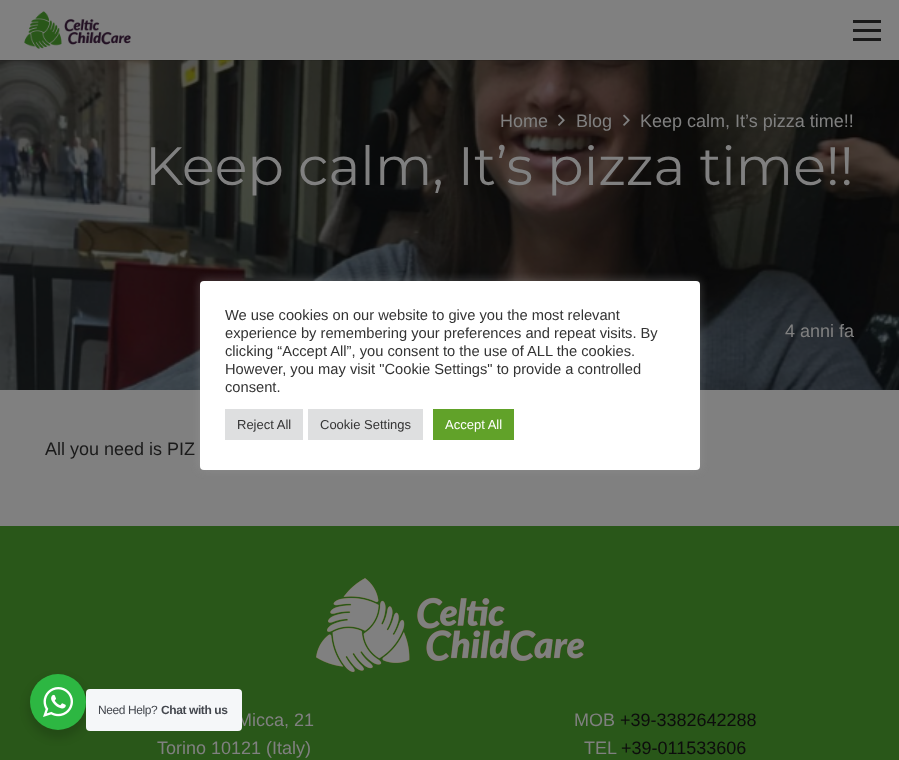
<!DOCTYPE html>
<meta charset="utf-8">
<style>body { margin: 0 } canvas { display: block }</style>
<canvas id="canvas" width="899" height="760"></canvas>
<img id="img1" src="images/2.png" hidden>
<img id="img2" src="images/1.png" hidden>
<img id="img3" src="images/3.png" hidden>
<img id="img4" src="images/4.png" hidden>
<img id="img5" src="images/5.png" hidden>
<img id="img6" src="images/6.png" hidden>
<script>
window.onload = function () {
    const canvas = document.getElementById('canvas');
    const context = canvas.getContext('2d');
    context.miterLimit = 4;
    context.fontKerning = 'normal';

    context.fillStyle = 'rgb(128, 128, 128)';
    context.fillRect(0, 0, 899, 760);
    context.drawImage(document.getElementById('img1'), 0, 60, 899, 330);
    context.fillStyle = 'rgba(0, 0, 0, 0.08)';
    context.fillRect(0, 60, 822, 1);
    context.drawImage(document.getElementById('img2'), 24, 11, 107, 38);
    context.fillStyle = 'rgb(26, 26, 26)';
    context.fillRect(853, 29, 28, 3);
    context.fillRect(853, 20, 28, 3);
    context.fillRect(853, 38, 28, 3);
    context.drawImage(document.getElementById('img3'), 558, 114, 7, 12);
    context.drawImage(document.getElementById('img4'), 623, 114, 7, 12);
    context.fillStyle = 'rgba(172, 171, 171, 0.3)';
    context.filter = 'blur(5px)';
    context.beginPath();
    context.roundRect(200, 280, 500, 189, 4);
    context.fill();
    context.filter = 'none';
    context.fillStyle = 'rgb(255, 255, 255)';
    context.beginPath();
    context.roundRect(200, 281, 500, 189, 4);
    context.fill();
    context.fillStyle = 'rgb(222, 223, 224)';
    context.fillRect(225, 409, 78, 31);
    context.fillRect(308, 409, 115, 31);
    context.fillStyle = 'rgb(97, 162, 41)';
    context.fillRect(433, 409, 81, 31);
    context.fillStyle = 'rgb(41, 87, 25)';
    context.fillRect(0, 526, 899, 234);
    context.fillStyle = 'rgba(0, 0, 0, 0.14)';
    context.filter = 'blur(4px)';
    context.beginPath();
    context.roundRect(28, 678, 60, 60, 30);
    context.fill();
    context.filter = 'none';
    context.fillStyle = 'rgb(45, 183, 66)';
    context.beginPath();
    context.arc(58, 702, 28, 0, 2 * Math.PI);
    context.fill();
    context.drawImage(document.getElementById('img5'), 43, 687, 30, 30);
    context.drawImage(document.getElementById('img6'), 316, 578, 268, 94);
    context.font = '18px Liberation Sans';
    context.fillStyle = 'rgb(128, 128, 128)';
    context.fillText('Home', 500, 127);
    context.fillText('Blog', 576, 127);
    context.fillText('Keep calm, It’s pizza time!!', 640, 127);
    context.font = '54px Montserrat';
    context.fillText('Keep calm, It’s pizza time!!', 145, 185);
    context.font = '18px Liberation Sans';
    context.fillText('4 anni fa', 785, 337);
    context.fillStyle = 'rgb(26, 26, 26)';
    context.fillText('All you need is PIZ', 45, 455);
    context.font = '14.7px Liberation Sans';
    context.fillStyle = 'rgb(51, 51, 51)';
    context.fillText('We use cookies on our website to give you the most relevant', 225, 320);
    context.fillText('experience by remembering your preferences and repeat visits. By', 225, 338);
    context.fillText('clicking “Accept All”, you consent to the use of ALL the cookies.', 225, 356);
    context.fillText('However, you may visit "Cookie Settings" to provide a controlled', 225, 374);
    context.fillText('consent.', 225, 392);
    context.font = '13px Liberation Sans';
    context.fillText('Reject All', 237, 429);
    context.fillText('Cookie Settings', 320, 429);
    context.fillStyle = 'rgb(255, 255, 255)';
    context.fillText('Accept All', 445, 429);
    context.font = '18px Liberation Sans';
    context.fillStyle = 'rgb(128, 128, 128)';
    context.fillText('Micca, 21', 237, 726);
    context.fillStyle = 'rgb(245, 247, 249)';
    context.beginPath();
    context.roundRect(86, 689, 156, 42, 4);
    context.fill();
    context.letterSpacing = '-0.4px';
    context.font = 'bold 12px Liberation Sans';
    context.fillStyle = 'rgb(67, 71, 78)';
    context.fillText('Chat with us', 161, 714);
    context.font = '12px Liberation Sans';
    context.fillText('Need Help?', 98, 714);
    context.letterSpacing = '0px';
    context.font = '18px Liberation Sans';
    context.fillStyle = 'rgb(128, 128, 128)';
    context.fillText('Torino 10121 (Italy)', 157, 754);
    context.fillText('MOB', 574, 726);
    context.fillStyle = 'rgb(13, 13, 13)';
    context.fillText('+39-3382642288', 620, 726);
    context.fillStyle = 'rgb(128, 128, 128)';
    context.fillText('TEL', 584, 754);
    context.fillStyle = 'rgb(13, 13, 13)';
    context.fillText('+39-011533606', 621, 754);
};
</script>
